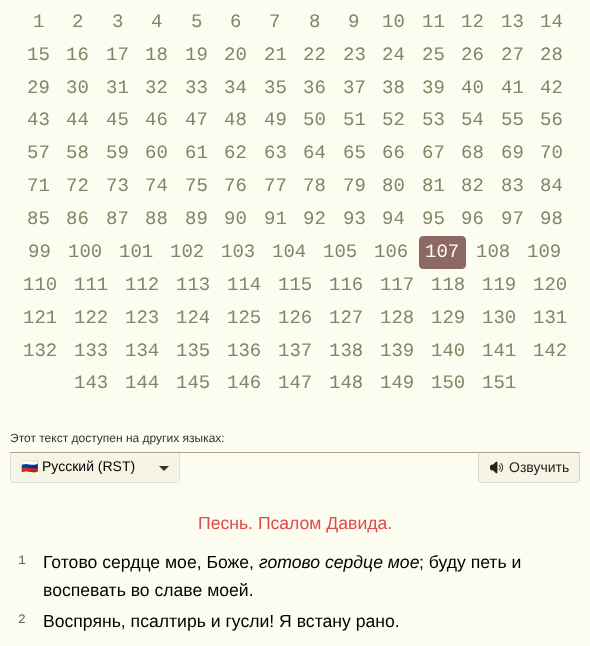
<!DOCTYPE html>
<meta charset="utf-8">
<style>body { margin: 0 } canvas { display: block }</style>
<canvas id="canvas" width="590" height="646"></canvas>
<img id="img1" src="images/1.png" hidden>
<script>
window.onload = function () {
    const canvas = document.getElementById('canvas');
    const context = canvas.getContext('2d');
    context.miterLimit = 4;
    context.fontKerning = 'normal';

    context.fillStyle = 'rgb(253, 252, 241)';
    context.fillRect(0, 0, 590, 646);
    context.fillStyle = 'rgb(140, 105, 100)';
    context.beginPath();
    context.roundRect(419.5, 236.5, 46, 32, 3.5);
    context.fill();
    context.strokeStyle = 'rgb(140, 105, 100)';
    context.stroke();
    context.fillStyle = 'rgb(172, 160, 143)';
    context.fillRect(10, 452, 570, 1);
    context.fillStyle = 'rgb(246, 244, 228)';
    context.beginPath();
    context.roundRect(10, 453, 170, 30, [0, 0, 4, 4]);
    context.fill();
    context.fillStyle = 'rgb(221, 221, 221)';
    context.beginPath();
    context.moveTo(10, 453);
    context.lineTo(180, 453);
    context.lineTo(180, 479);
    context.bezierCurveTo(180, 481, 178, 483, 176, 483);
    context.lineTo(14, 483);
    context.bezierCurveTo(12, 483, 10, 481, 10, 479);
    context.closePath();
    context.moveTo(11, 453);
    context.lineTo(179, 453);
    context.lineTo(179, 479);
    context.bezierCurveTo(179, 481, 178, 482, 176, 482);
    context.lineTo(14, 482);
    context.bezierCurveTo(12, 482, 11, 481, 11, 479);
    context.closePath();
    context.fill('evenodd');
    context.fillStyle = 'rgb(51, 51, 51)';
    context.beginPath();
    context.moveTo(159, 466);
    context.lineTo(169, 466);
    context.lineTo(164, 471);
    context.closePath();
    context.fill();
    context.fillStyle = 'rgb(246, 244, 228)';
    context.beginPath();
    context.roundRect(478, 453, 102, 30, [0, 0, 4, 4]);
    context.fill();
    context.fillStyle = 'rgba(102, 102, 102, 0.2)';
    context.beginPath();
    context.moveTo(478, 453);
    context.lineTo(580, 453);
    context.lineTo(580, 479);
    context.bezierCurveTo(580, 481, 578, 483, 576, 483);
    context.lineTo(482, 483);
    context.bezierCurveTo(480, 483, 478, 481, 478, 479);
    context.closePath();
    context.moveTo(479, 453);
    context.lineTo(579, 453);
    context.lineTo(579, 479);
    context.bezierCurveTo(579, 481, 578, 482, 576, 482);
    context.lineTo(482, 482);
    context.bezierCurveTo(480, 482, 479, 481, 479, 479);
    context.closePath();
    context.fill('evenodd');
    context.drawImage(document.getElementById('img1'), 489, 461, 15, 13);
    context.font = '19px Liberation Mono';
    context.fillStyle = 'rgb(128, 134, 103)';
    context.fillText('1', 33, 27);
    context.fillText('2', 72, 27);
    context.fillText('3', 112, 27);
    context.fillText('4', 151, 27);
    context.fillText('5', 191, 27);
    context.fillText('6', 230, 27);
    context.fillText('7', 269, 27);
    context.fillText('8', 309, 27);
    context.fillText('9', 348, 27);
    context.fillText('10', 382, 27);
    context.fillText('11', 422, 27);
    context.fillText('12', 461, 27);
    context.fillText('13', 501, 27);
    context.fillText('14', 540, 27);
    context.fillText('15', 27, 60);
    context.fillText('16', 66, 60);
    context.fillText('17', 106, 60);
    context.fillText('18', 145, 60);
    context.fillText('19', 185, 60);
    context.fillText('20', 224, 60);
    context.fillText('21', 264, 60);
    context.fillText('22', 303, 60);
    context.fillText('23', 343, 60);
    context.fillText('24', 382, 60);
    context.fillText('25', 422, 60);
    context.fillText('26', 461, 60);
    context.fillText('27', 501, 60);
    context.fillText('28', 540, 60);
    context.fillText('29', 27, 93);
    context.fillText('30', 66, 93);
    context.fillText('31', 106, 93);
    context.fillText('32', 145, 93);
    context.fillText('33', 185, 93);
    context.fillText('34', 224, 93);
    context.fillText('35', 264, 93);
    context.fillText('36', 303, 93);
    context.fillText('37', 343, 93);
    context.fillText('38', 382, 93);
    context.fillText('39', 422, 93);
    context.fillText('40', 461, 93);
    context.fillText('41', 501, 93);
    context.fillText('42', 540, 93);
    context.fillText('43', 27, 125);
    context.fillText('44', 66, 125);
    context.fillText('45', 106, 125);
    context.fillText('46', 145, 125);
    context.fillText('47', 185, 125);
    context.fillText('48', 224, 125);
    context.fillText('49', 264, 125);
    context.fillText('50', 303, 125);
    context.fillText('51', 343, 125);
    context.fillText('52', 382, 125);
    context.fillText('53', 422, 125);
    context.fillText('54', 461, 125);
    context.fillText('55', 501, 125);
    context.fillText('56', 540, 125);
    context.fillText('57', 27, 158);
    context.fillText('58', 66, 158);
    context.fillText('59', 106, 158);
    context.fillText('60', 145, 158);
    context.fillText('61', 185, 158);
    context.fillText('62', 224, 158);
    context.fillText('63', 264, 158);
    context.fillText('64', 303, 158);
    context.fillText('65', 343, 158);
    context.fillText('66', 382, 158);
    context.fillText('67', 422, 158);
    context.fillText('68', 461, 158);
    context.fillText('69', 501, 158);
    context.fillText('70', 540, 158);
    context.fillText('71', 27, 191);
    context.fillText('72', 66, 191);
    context.fillText('73', 106, 191);
    context.fillText('74', 145, 191);
    context.fillText('75', 185, 191);
    context.fillText('76', 224, 191);
    context.fillText('77', 264, 191);
    context.fillText('78', 303, 191);
    context.fillText('79', 343, 191);
    context.fillText('80', 382, 191);
    context.fillText('81', 422, 191);
    context.fillText('82', 461, 191);
    context.fillText('83', 501, 191);
    context.fillText('84', 540, 191);
    context.fillText('85', 27, 224);
    context.fillText('86', 66, 224);
    context.fillText('87', 106, 224);
    context.fillText('88', 145, 224);
    context.fillText('89', 185, 224);
    context.fillText('90', 224, 224);
    context.fillText('91', 264, 224);
    context.fillText('92', 303, 224);
    context.fillText('93', 343, 224);
    context.fillText('94', 382, 224);
    context.fillText('95', 422, 224);
    context.fillText('96', 461, 224);
    context.fillText('97', 501, 224);
    context.fillText('98', 540, 224);
    context.fillText('99', 28, 257);
    context.fillText('100', 68, 257);
    context.fillText('101', 119, 257);
    context.fillText('102', 170, 257);
    context.fillText('103', 221, 257);
    context.fillText('104', 272, 257);
    context.fillText('105', 323, 257);
    context.fillText('106', 374, 257);
    context.fillStyle = 'rgb(253, 252, 241)';
    context.fillText('107', 425, 257);
    context.fillStyle = 'rgb(128, 134, 103)';
    context.fillText('108', 476, 257);
    context.fillText('109', 527, 257);
    context.fillText('110', 23, 290);
    context.fillText('111', 74, 290);
    context.fillText('112', 125, 290);
    context.fillText('113', 176, 290);
    context.fillText('114', 227, 290);
    context.fillText('115', 278, 290);
    context.fillText('116', 329, 290);
    context.fillText('117', 380, 290);
    context.fillText('118', 431, 290);
    context.fillText('119', 482, 290);
    context.fillText('120', 533, 290);
    context.fillText('121', 23, 323);
    context.fillText('122', 74, 323);
    context.fillText('123', 125, 323);
    context.fillText('124', 176, 323);
    context.fillText('125', 227, 323);
    context.fillText('126', 278, 323);
    context.fillText('127', 329, 323);
    context.fillText('128', 380, 323);
    context.fillText('129', 431, 323);
    context.fillText('130', 482, 323);
    context.fillText('131', 533, 323);
    context.fillText('132', 23, 356);
    context.fillText('133', 74, 356);
    context.fillText('134', 125, 356);
    context.fillText('135', 176, 356);
    context.fillText('136', 227, 356);
    context.fillText('137', 278, 356);
    context.fillText('138', 329, 356);
    context.fillText('139', 380, 356);
    context.fillText('140', 431, 356);
    context.fillText('141', 482, 356);
    context.fillText('142', 533, 356);
    context.fillText('143', 74, 388);
    context.fillText('144', 125, 388);
    context.fillText('145', 176, 388);
    context.fillText('146', 227, 388);
    context.fillText('147', 278, 388);
    context.fillText('148', 329, 388);
    context.fillText('149', 380, 388);
    context.fillText('150', 431, 388);
    context.fillText('151', 482, 388);
    context.font = '12px Liberation Sans';
    context.fillStyle = 'rgb(51, 50, 48)';
    context.fillText('Этот текст доступен на других языках:', 10, 442);
    context.font = '14px Noto Color Emoji';
    context.fillStyle = 'rgb(0, 0, 0)';
    context.fillText('🇷🇺', 21, 471);
    context.font = '14px Liberation Sans';
    context.fillText('Русский (RST)', 42, 471);
    context.fillStyle = 'rgb(34, 34, 34)';
    context.fillText('Озвучить', 509, 472);
    context.font = '17.6px Liberation Sans';
    context.fillStyle = 'rgb(223, 74, 74)';
    context.fillText('Песнь. Псалом Давида.', 198, 529);
    context.font = '13px Liberation Mono';
    context.fillStyle = 'rgb(97, 101, 98)';
    context.fillText('1', 18, 564);
    context.font = '17.6px Liberation Sans';
    context.fillStyle = 'rgb(0, 0, 0)';
    context.fillText('Готово сердце мое, Боже,', 43, 568);
    context.font = 'italic 17.6px Liberation Sans';
    context.fillText('готово сердце мое', 259, 568);
    context.font = '17.6px Liberation Sans';
    context.fillText('; буду петь и', 419, 568);
    context.fillText('воспевать во славе моей.', 43, 596);
    context.font = '13px Liberation Mono';
    context.fillStyle = 'rgb(97, 101, 98)';
    context.fillText('2', 18, 623);
    context.font = '17.6px Liberation Sans';
    context.fillStyle = 'rgb(0, 0, 0)';
    context.fillText('Воспрянь, псалтирь и гусли! Я встану рано.', 43, 627);
};
</script>
